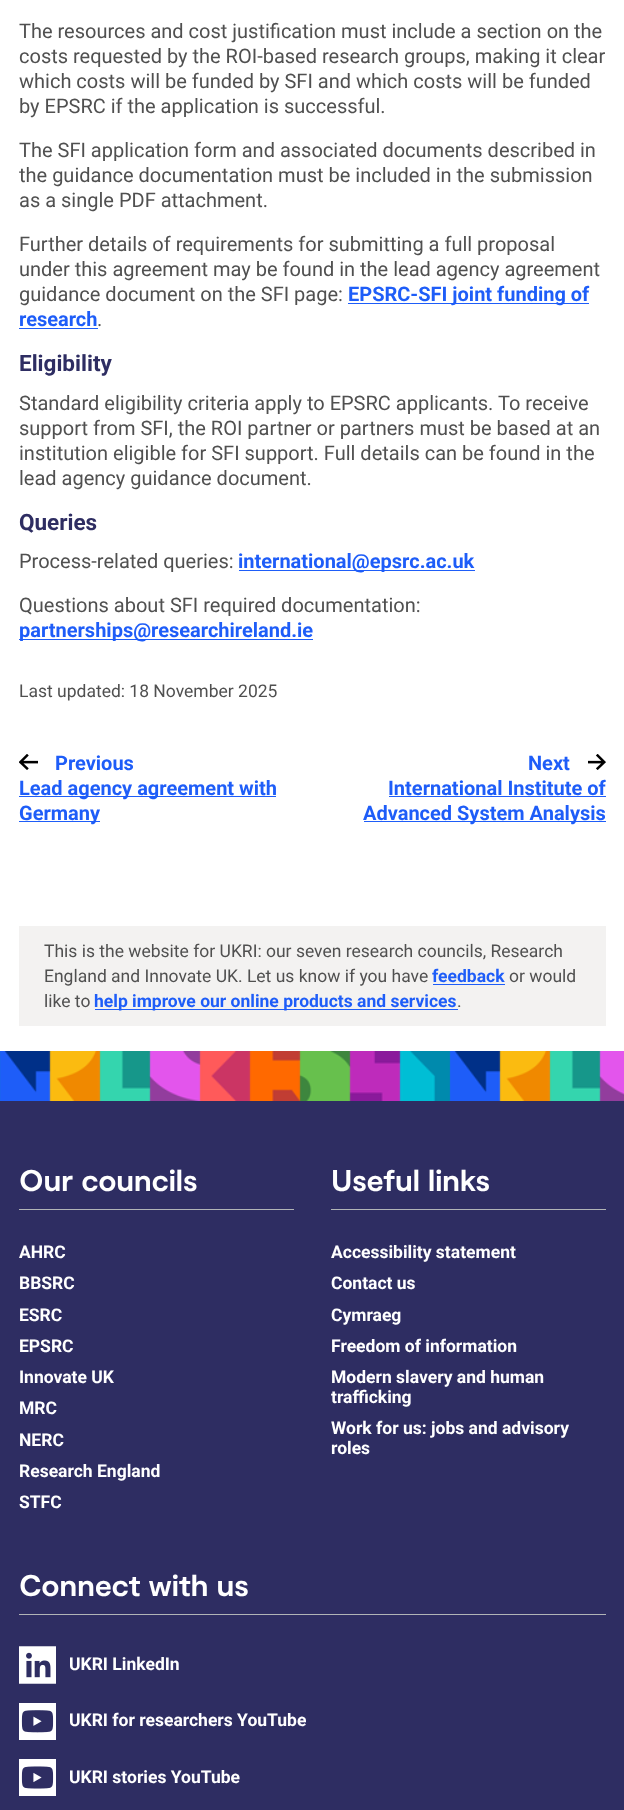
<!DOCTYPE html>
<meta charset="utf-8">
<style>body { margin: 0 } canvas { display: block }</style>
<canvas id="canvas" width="624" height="1810"></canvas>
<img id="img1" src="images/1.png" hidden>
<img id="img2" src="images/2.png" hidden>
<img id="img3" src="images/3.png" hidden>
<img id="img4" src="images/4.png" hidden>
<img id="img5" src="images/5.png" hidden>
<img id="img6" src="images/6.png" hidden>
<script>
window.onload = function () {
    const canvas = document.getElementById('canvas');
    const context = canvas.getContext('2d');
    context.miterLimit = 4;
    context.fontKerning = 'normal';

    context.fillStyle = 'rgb(255, 255, 255)';
    context.fillRect(0, 0, 624, 1810);
    context.fillStyle = 'rgb(30, 93, 248)';
    context.fillRect(348, 303, 241, 1);
    context.fillRect(19, 328, 79, 1);
    context.fillRect(239, 570, 236, 1);
    context.fillRect(19, 639, 294, 1);
    context.drawImage(document.getElementById('img1'), 19, 754, 19, 16);
    context.fillRect(19, 796, 257, 1);
    context.fillRect(19, 821, 81, 1);
    context.drawImage(document.getElementById('img2'), 588, 754, 18, 16);
    context.fillRect(389, 796, 217, 1);
    context.fillRect(364, 821, 242, 1);
    context.fillStyle = 'rgb(243, 242, 241)';
    context.fillRect(19, 926, 587, 100);
    context.fillStyle = 'rgb(30, 93, 248)';
    context.fillRect(433, 984, 72, 1);
    context.fillRect(95, 1009, 363, 1);
    context.fillStyle = 'rgb(46, 45, 98)';
    context.fillRect(0, 1101, 624, 709);
    context.drawImage(document.getElementById('img3'), 0, 1051, 624, 50);
    context.fillStyle = 'rgb(177, 180, 182)';
    context.fillRect(19, 1209, 275, 1);
    context.fillRect(331, 1209, 275, 1);
    context.fillRect(19, 1614, 587, 1);
    context.drawImage(document.getElementById('img4'), 19, 1646, 37, 38);
    context.drawImage(document.getElementById('img5'), 19, 1703, 37, 37);
    context.drawImage(document.getElementById('img6'), 19, 1759, 37, 37);
    context.font = '20px Roboto';
    context.fillStyle = 'rgb(80, 80, 80)';
    context.fillText('The resources and cost justification must include a section on the', 19, 38);
    context.fillText('costs requested by the ROI-based research groups, making it clear', 19, 63);
    context.fillText('which costs will be funded by SFI and which costs will be funded', 19, 88);
    context.fillText('by EPSRC if the application is successful.', 19, 113);
    context.fillText('The SFI application form and associated documents described in', 19, 157);
    context.fillText('the guidance documentation must be included in the submission', 19, 182);
    context.fillText('as a single PDF attachment.', 19, 207);
    context.fillText('Further details of requirements for submitting a full proposal', 19, 251);
    context.fillText('under this agreement may be found in the lead agency agreement', 19, 276);
    context.fillText('guidance document on the SFI page:', 19, 301);
    context.font = 'bold 20px Roboto';
    context.fillStyle = 'rgb(30, 93, 248)';
    context.fillText('EPSRC-SFI joint funding of', 348, 301);
    context.fillText('research', 19, 326);
    context.font = '20px Roboto';
    context.fillStyle = 'rgb(80, 80, 80)';
    context.fillText('.', 97, 326);
    context.font = 'bold 22.5px Roboto';
    context.fillStyle = 'rgb(46, 45, 98)';
    context.fillText('Eligibility', 19, 371);
    context.font = '20px Roboto';
    context.fillStyle = 'rgb(80, 80, 80)';
    context.fillText('Standard eligibility criteria apply to EPSRC applicants. To receive', 19, 410);
    context.fillText('support from SFI, the ROI partner or partners must be based at an', 19, 435);
    context.fillText('institution eligible for SFI support. Full details can be found in the', 19, 460);
    context.fillText('lead agency guidance document.', 19, 485);
    context.font = 'bold 22.5px Roboto';
    context.fillStyle = 'rgb(46, 45, 98)';
    context.fillText('Queries', 19, 530);
    context.font = '20px Roboto';
    context.fillStyle = 'rgb(80, 80, 80)';
    context.fillText('Process-related queries:', 19, 568);
    context.font = 'bold 20px Roboto';
    context.fillStyle = 'rgb(30, 93, 248)';
    context.fillText('international@epsrc.ac.uk', 238, 568);
    context.font = '20px Roboto';
    context.fillStyle = 'rgb(80, 80, 80)';
    context.fillText('Questions about SFI required documentation:', 19, 612);
    context.font = 'bold 20px Roboto';
    context.fillStyle = 'rgb(30, 93, 248)';
    context.fillText('partnerships@researchireland.ie', 19, 637);
    context.font = '17.5px Roboto';
    context.fillStyle = 'rgb(80, 80, 80)';
    context.fillText('Last updated: 18 November 2025', 19, 697);
    context.font = 'bold 20px Roboto';
    context.fillStyle = 'rgb(30, 93, 248)';
    context.fillText('Previous', 55, 770);
    context.fillText('Lead agency agreement with', 19, 795);
    context.fillText('Germany', 19, 820);
    context.fillText('Next', 528, 770);
    context.fillText('International Institute of', 388, 795);
    context.fillText('Advanced System Analysis', 363, 820);
    context.font = '17.5px Roboto';
    context.fillStyle = 'rgb(80, 80, 80)';
    context.fillText('This is the website for UKRI: our seven research councils, Research', 44, 957);
    context.fillText('England and Innovate UK. Let us know if you have', 44, 982);
    context.font = 'bold 17.5px Roboto';
    context.fillStyle = 'rgb(30, 93, 248)';
    context.fillText('feedback', 432, 982);
    context.font = '17.5px Roboto';
    context.fillStyle = 'rgb(80, 80, 80)';
    context.fillText('or would', 509, 982);
    context.fillText('like to', 44, 1007);
    context.font = 'bold 17.5px Roboto';
    context.fillStyle = 'rgb(30, 93, 248)';
    context.fillText('help improve our online products and services', 94, 1007);
    context.font = '17.5px Roboto';
    context.fillStyle = 'rgb(80, 80, 80)';
    context.fillText('.', 457, 1007);
    context.font = 'bold 30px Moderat';
    context.fillStyle = 'rgb(255, 255, 255)';
    context.fillText('Our councils', 19, 1191);
    context.font = 'bold 17.5px Roboto';
    context.fillText('AHRC', 19, 1258);
    context.fillText('BBSRC', 19, 1289);
    context.fillText('ESRC', 19, 1321);
    context.fillText('EPSRC', 19, 1352);
    context.fillText('Innovate UK', 19, 1383);
    context.fillText('MRC', 19, 1414);
    context.fillText('NERC', 19, 1446);
    context.fillText('Research England', 19, 1477);
    context.fillText('STFC', 19, 1508);
    context.font = 'bold 30px Moderat';
    context.fillText('Useful links', 331, 1191);
    context.font = 'bold 17.5px Roboto';
    context.fillText('Accessibility statement', 331, 1258);
    context.fillText('Contact us', 331, 1289);
    context.fillText('Cymraeg', 331, 1321);
    context.fillText('Freedom of information', 331, 1352);
    context.fillText('Modern slavery and human', 331, 1383);
    context.fillText('trafficking', 331, 1403);
    context.fillText('Work for us: jobs and advisory', 331, 1434);
    context.fillText('roles', 331, 1454);
    context.font = 'bold 30px Moderat';
    context.fillText('Connect with us', 19, 1596);
    context.font = 'bold 17.5px Roboto';
    context.fillText('UKRI LinkedIn', 69, 1670);
    context.fillText('UKRI for researchers YouTube', 69, 1726);
    context.fillText('UKRI stories YouTube', 69, 1783);
};
</script>
